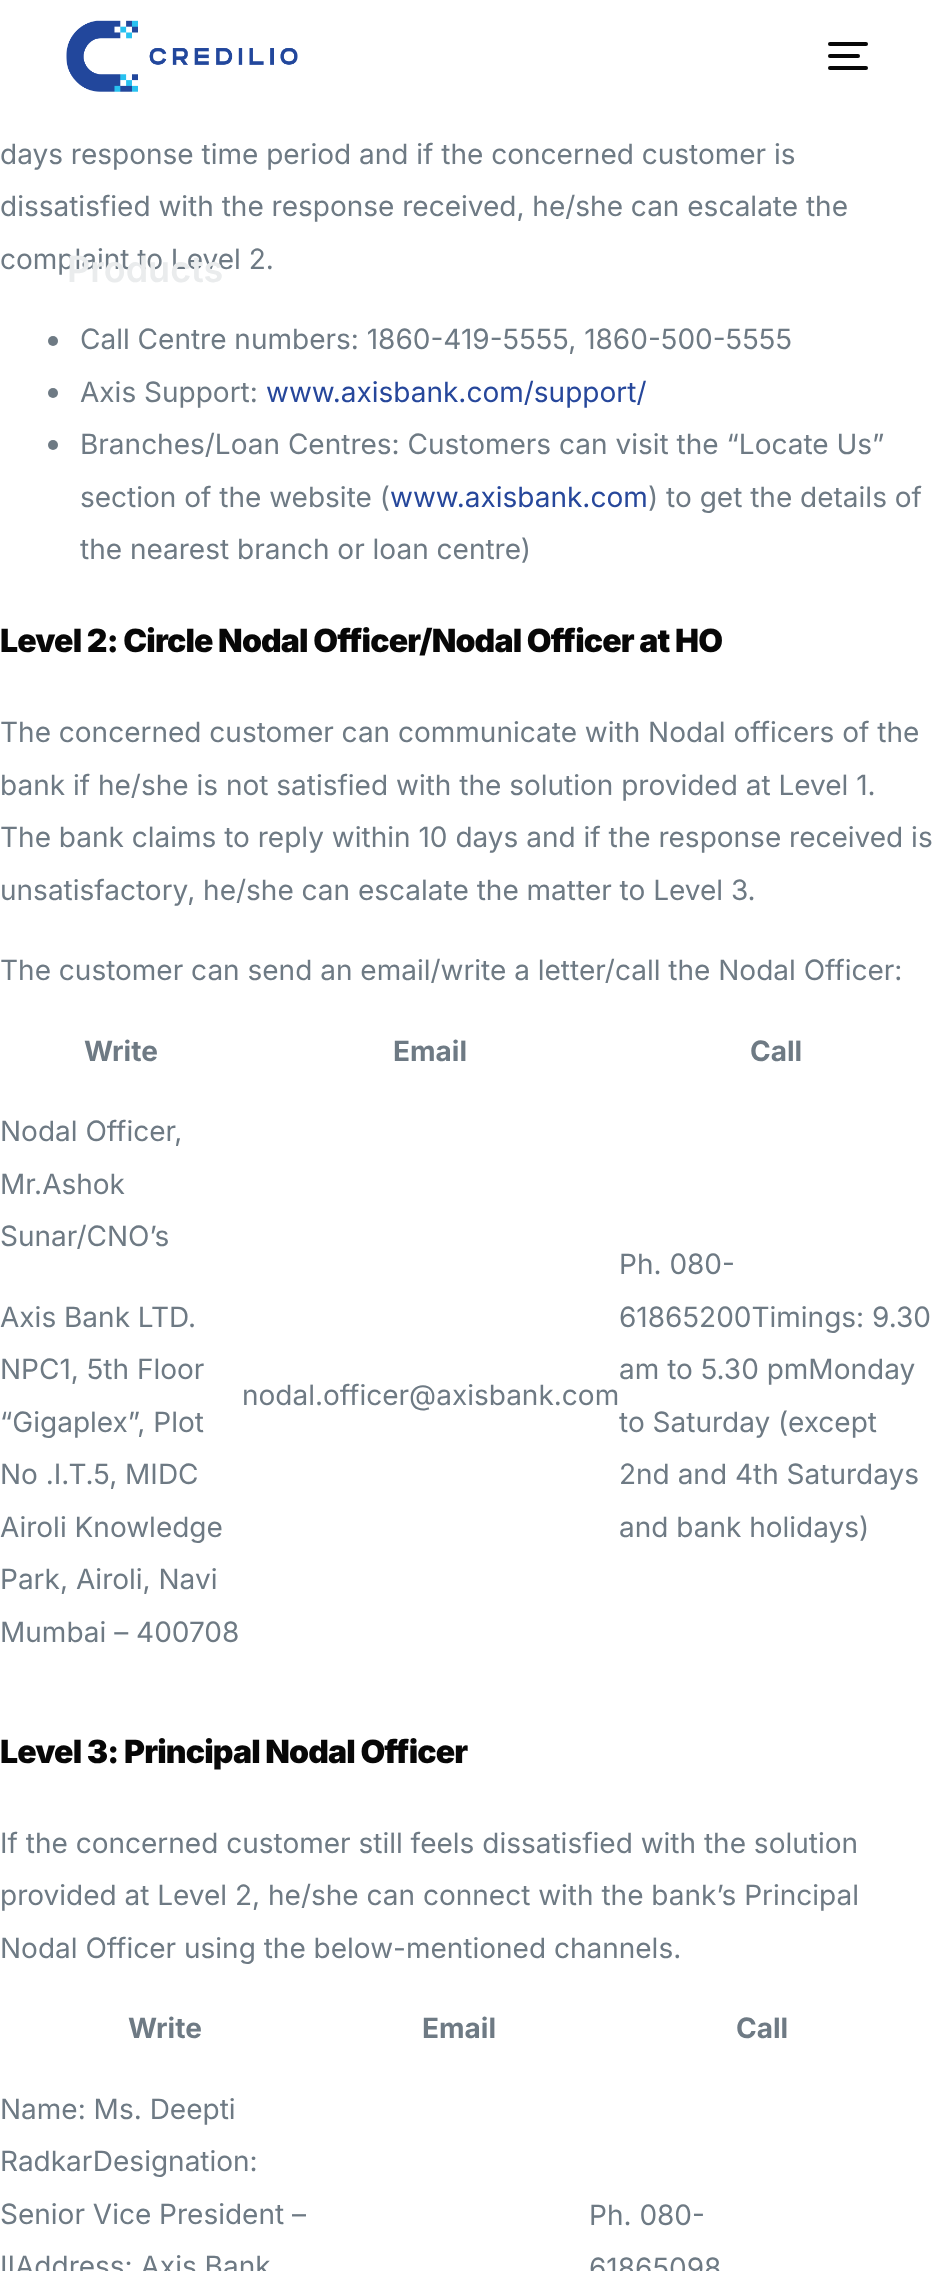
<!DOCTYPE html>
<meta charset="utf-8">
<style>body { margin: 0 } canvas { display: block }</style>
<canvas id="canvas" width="933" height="2271"></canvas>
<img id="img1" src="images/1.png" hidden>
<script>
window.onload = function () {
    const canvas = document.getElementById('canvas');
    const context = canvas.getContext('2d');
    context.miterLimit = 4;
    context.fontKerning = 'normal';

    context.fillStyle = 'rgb(255, 255, 255)';
    context.fillRect(0, 0, 933, 2271);
    context.drawImage(document.getElementById('img1'), 66, 20, 232, 72);
    context.fillStyle = 'rgb(7, 7, 7)';
    context.beginPath();
    context.roundRect(828, 42, 40, 4, 2);
    context.fill();
    context.beginPath();
    context.roundRect(828, 54, 32, 4, 2);
    context.fill();
    context.beginPath();
    context.roundRect(828, 66, 40, 4, 2);
    context.fill();
    context.fillStyle = 'rgb(110, 122, 132)';
    context.beginPath();
    context.arc(53, 341, 5, 0, 2 * Math.PI);
    context.fill();
    context.beginPath();
    context.arc(53, 393, 5, 0, 2 * Math.PI);
    context.fill();
    context.beginPath();
    context.arc(53, 445, 5, 0, 2 * Math.PI);
    context.fill();
    context.font = '28px Inter';
    context.fillText('days response time period and if the concerned customer is', 0, 164);
    context.fillText('dissatisfied with the response received, he/she can escalate the', 0, 216);
    context.fillText('complaint to Level 2.', 0, 269);
    context.fillText('Call Centre numbers: 1860-419-5555, 1860-500-5555', 80, 349);
    context.fillText('Axis Support:', 80, 402);
    context.fillStyle = 'rgb(38, 71, 155)';
    context.fillText('www.axisbank.com/support/', 266, 402);
    context.fillStyle = 'rgb(110, 122, 132)';
    context.fillText('Branches/Loan Centres: Customers can visit the “Locate Us”', 80, 454);
    context.fillText('section of the website (', 80, 507);
    context.fillStyle = 'rgb(38, 71, 155)';
    context.fillText('www.axisbank.com', 390, 507);
    context.fillStyle = 'rgb(110, 122, 132)';
    context.fillText(') to get the details of', 648, 507);
    context.fillText('the nearest branch or loan centre)', 80, 559);
    context.letterSpacing = '-0.85px';
    context.font = '900 32px Inter';
    context.fillStyle = 'rgb(7, 7, 7)';
    context.fillText('Level 2: Circle Nodal Officer/Nodal Officer at HO', 0, 652);
    context.letterSpacing = '0px';
    context.font = '28px Inter';
    context.fillStyle = 'rgb(110, 122, 132)';
    context.fillText('The concerned customer can communicate with Nodal officers of the', 0, 742);
    context.fillText('bank if he/she is not satisfied with the solution provided at Level 1.', 0, 795);
    context.fillText('The bank claims to reply within 10 days and if the response received is', 0, 847);
    context.fillText('unsatisfactory, he/she can escalate the matter to Level 3.', 0, 900);
    context.fillText('The customer can send an email/write a letter/call the Nodal Officer:', 0, 980);
    context.font = 'bold 28px Inter';
    context.fillText('Write', 84, 1061);
    context.fillText('Email', 393, 1061);
    context.fillText('Call', 750, 1061);
    context.font = '28px Inter';
    context.fillText('Nodal Officer,', 0, 1141);
    context.fillText('Mr.Ashok', 0, 1194);
    context.fillText('Sunar/CNO’s', 0, 1246);
    context.fillText('Axis Bank LTD.', 0, 1327);
    context.fillText('NPC1, 5th Floor', 0, 1379);
    context.fillText('“Gigaplex”, Plot', 0, 1432);
    context.fillText('No .I.T.5, MIDC', 0, 1484);
    context.fillText('Airoli Knowledge', 0, 1537);
    context.fillText('Park, Airoli, Navi', 0, 1589);
    context.fillText('Mumbai – 400708', 0, 1642);
    context.fillText('nodal.officer@axisbank.com', 242, 1405);
    context.fillText('Ph. 080-', 619, 1274);
    context.fillText('61865200Timings: 9.30', 619, 1327);
    context.fillText('am to 5.30 pmMonday', 619, 1379);
    context.fillText('to Saturday (except', 619, 1432);
    context.fillText('2nd and 4th Saturdays', 619, 1484);
    context.fillText('and bank holidays)', 619, 1537);
    context.letterSpacing = '-0.85px';
    context.font = '900 32px Inter';
    context.fillStyle = 'rgb(7, 7, 7)';
    context.fillText('Level 3: Principal Nodal Officer', 0, 1763);
    context.letterSpacing = '0px';
    context.font = '28px Inter';
    context.fillStyle = 'rgb(110, 122, 132)';
    context.fillText('If the concerned customer still feels dissatisfied with the solution', 0, 1853);
    context.fillText('provided at Level 2, he/she can connect with the bank’s Principal', 0, 1905);
    context.fillText('Nodal Officer using the below-mentioned channels.', 0, 1958);
    context.font = 'bold 28px Inter';
    context.fillText('Write', 128, 2038);
    context.fillText('Email', 422, 2038);
    context.fillText('Call', 736, 2038);
    context.font = '28px Inter';
    context.fillText('Name: Ms. Deepti', 0, 2119);
    context.fillText('RadkarDesignation:', 0, 2171);
    context.fillText('Senior Vice President –', 0, 2224);
    context.fillText('IIAddress: Axis Bank', 0, 2276);
    context.fillText('Ph. 080-', 589, 2225);
    context.fillText('61865098', 589, 2278);
    context.font = '600 36px Inter';
    context.fillStyle = 'rgb(234, 236, 237)';
    context.fillText('Products', 67, 282);
};
</script>
